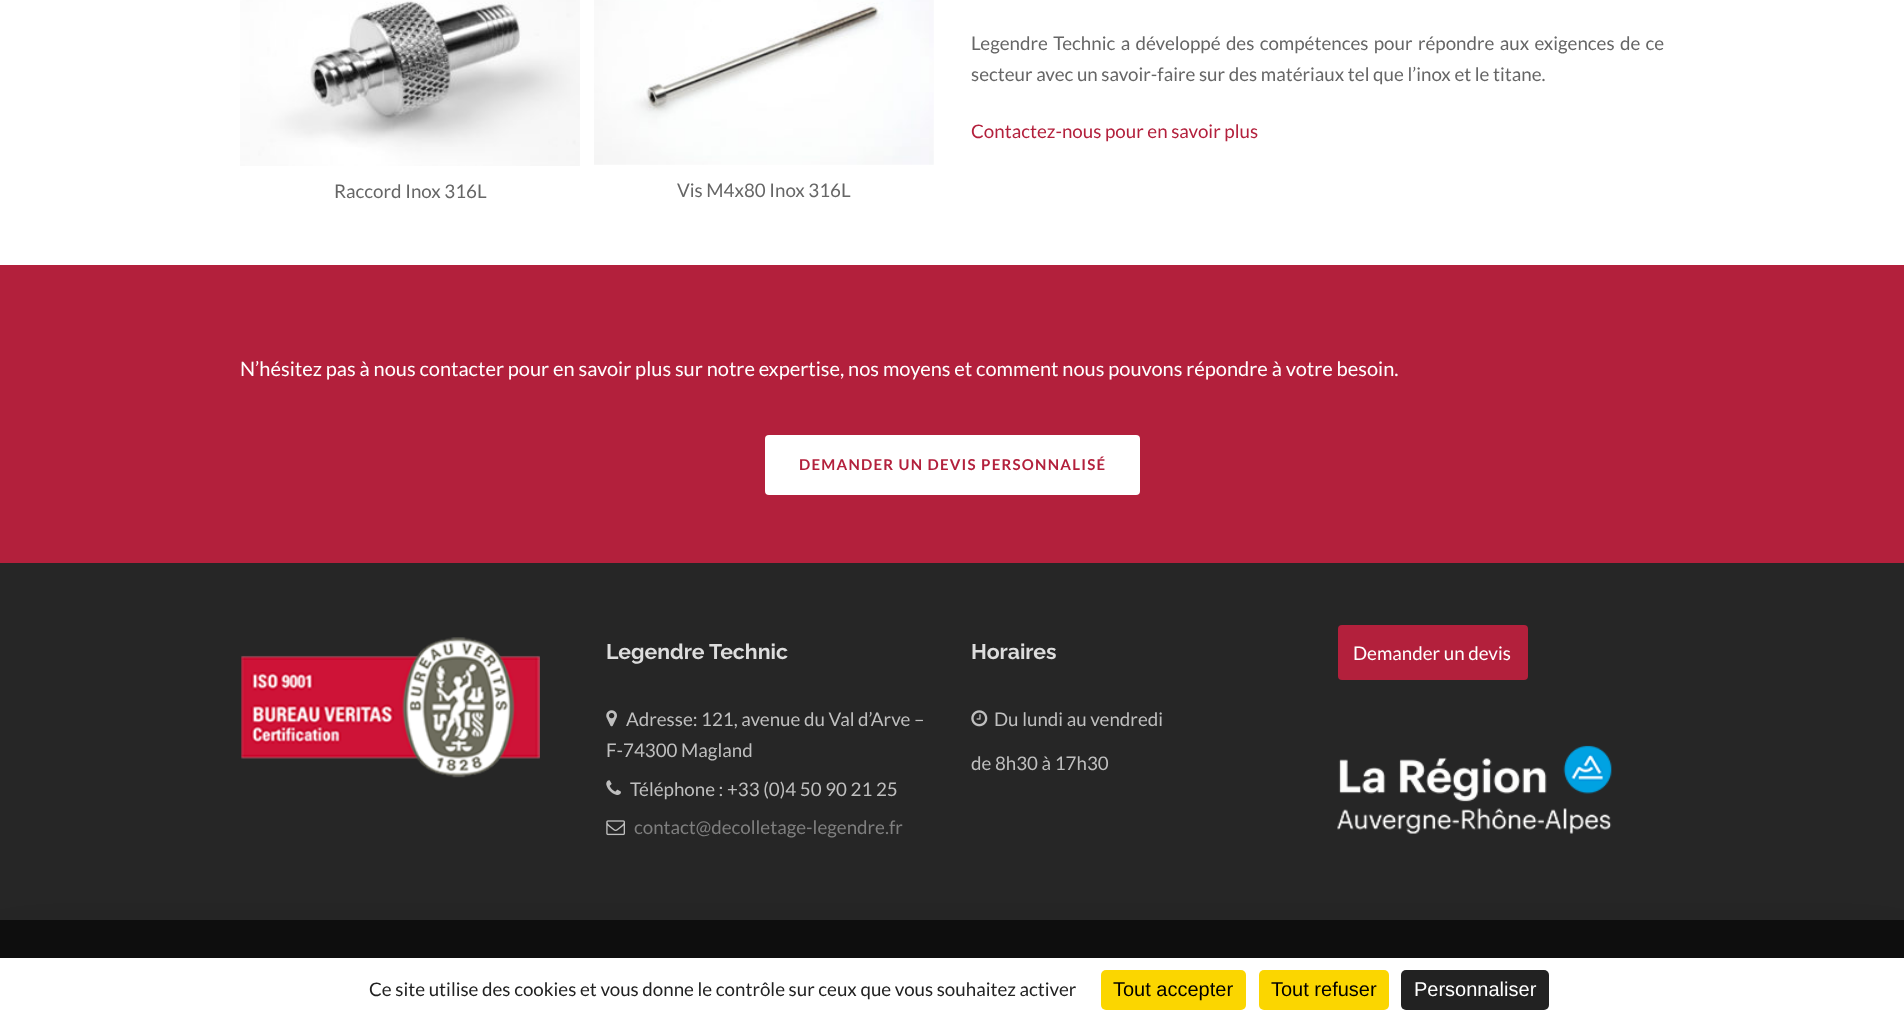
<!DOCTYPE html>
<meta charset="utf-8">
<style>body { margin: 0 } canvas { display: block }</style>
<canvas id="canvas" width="1904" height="1022"></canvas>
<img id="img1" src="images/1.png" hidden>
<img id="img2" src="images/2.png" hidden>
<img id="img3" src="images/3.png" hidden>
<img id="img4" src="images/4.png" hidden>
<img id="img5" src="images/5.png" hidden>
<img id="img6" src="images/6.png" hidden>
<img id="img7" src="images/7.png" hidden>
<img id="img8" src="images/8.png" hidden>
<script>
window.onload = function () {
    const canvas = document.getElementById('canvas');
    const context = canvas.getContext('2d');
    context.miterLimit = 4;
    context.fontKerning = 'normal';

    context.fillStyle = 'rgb(255, 255, 255)';
    context.fillRect(0, 0, 1904, 1022);
    context.drawImage(document.getElementById('img1'), 240, 0, 340, 166);
    context.drawImage(document.getElementById('img2'), 594, 0, 340, 165);
    context.fillStyle = 'rgb(179, 32, 60)';
    context.fillRect(0, 265, 1904, 298);
    context.fillStyle = 'rgb(255, 255, 255)';
    context.beginPath();
    context.roundRect(765, 435, 375, 60, 4);
    context.fill();
    context.fillStyle = 'rgb(38, 38, 38)';
    context.fillRect(0, 563, 1904, 357);
    context.drawImage(document.getElementById('img3'), 241, 637, 299, 141);
    context.drawImage(document.getElementById('img4'), 606, 710, 11, 17);
    context.drawImage(document.getElementById('img5'), 606, 780, 15, 15);
    context.drawImage(document.getElementById('img6'), 606, 820, 19, 16);
    context.drawImage(document.getElementById('img7'), 971, 710, 17, 17);
    context.fillStyle = 'rgb(179, 32, 60)';
    context.beginPath();
    context.roundRect(1338, 625, 190, 55, 4);
    context.fill();
    context.drawImage(document.getElementById('img8'), 1337, 745, 275, 89);
    context.fillStyle = 'rgb(15, 15, 15)';
    context.fillRect(0, 920, 1904, 38);
    context.fillStyle = 'rgba(0, 0, 0, 0.25)';
    context.filter = 'blur(37.5px)';
    context.beginPath();
    context.rect(0, 983, 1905, 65);
    context.fill();
    context.filter = 'none';
    context.fillStyle = 'rgb(255, 255, 255)';
    context.fillRect(0, 958, 1904, 64);
    context.fillStyle = 'rgb(251, 214, 0)';
    context.beginPath();
    context.roundRect(1101, 970, 145, 40, 5);
    context.fill();
    context.beginPath();
    context.roundRect(1259, 970, 130, 40, 5);
    context.fill();
    context.fillStyle = 'rgb(34, 34, 34)';
    context.beginPath();
    context.roundRect(1401, 970, 148, 40, 5);
    context.fill();
    context.wordSpacing = '1.75px';
    context.font = '18.75px Lato';
    context.fillStyle = 'rgb(102, 102, 102)';
    context.fillText('Legendre Technic a développé des compétences pour répondre aux exigences de ce', 971, 50);
    context.wordSpacing = '0px';
    context.fillText('secteur avec un savoir-faire sur des matériaux tel que l’inox et le titane.', 971, 81);
    context.fillStyle = 'rgb(179, 32, 60)';
    context.fillText('Contactez-nous pour en savoir plus', 971, 138);
    context.fillStyle = 'rgb(102, 102, 102)';
    context.fillText('Raccord Inox 316L', 334, 198);
    context.fillText('Vis M4x80 Inox 316L', 677, 197);
    context.font = '20px Lato';
    context.fillStyle = 'rgb(255, 255, 255)';
    context.fillText('N’hésitez pas à nous contacter pour en savoir plus sur notre expertise, nos moyens et comment nous pouvons répondre à votre besoin.', 240, 376);
    context.letterSpacing = '1.25px';
    context.font = 'bold 15px Lato';
    context.fillStyle = 'rgb(179, 32, 60)';
    context.fillText('DEMANDER UN DEVIS PERSONNALISÉ', 799, 470);
    context.letterSpacing = '0px';
    context.font = 'bold 21.25px Raleway';
    context.fillStyle = 'rgb(221, 221, 221)';
    context.fillText('Legendre Technic', 606, 659);
    context.font = '18.75px Lato';
    context.fillStyle = 'rgb(191, 191, 191)';
    context.fillText('Adresse: 121, avenue du Val d’Arve –', 626, 726);
    context.fillText('F-74300 Magland', 606, 757);
    context.fillText('Téléphone : +33 (0)4 50 90 21 25', 630, 796);
    context.fillStyle = 'rgb(127, 127, 127)';
    context.fillText('contact@decolletage-legendre.fr', 634, 834);
    context.font = 'bold 21.25px Raleway';
    context.fillStyle = 'rgb(221, 221, 221)';
    context.fillText('Horaires', 971, 659);
    context.font = '18.75px Lato';
    context.fillStyle = 'rgb(191, 191, 191)';
    context.fillText('Du lundi au vendredi', 994, 726);
    context.fillText('de 8h30 à 17h30', 971, 770);
    context.fillStyle = 'rgb(255, 255, 255)';
    context.fillText('Demander un devis', 1353, 660);
    context.fillStyle = 'rgb(34, 34, 34)';
    context.fillText('Ce site utilise des cookies et vous donne le contrôle sur ceux que vous souhaitez activer', 369, 996);
    context.font = '20px Liberation Sans';
    context.fillStyle = 'rgb(0, 0, 0)';
    context.fillText('Tout accepter', 1113, 996);
    context.fillText('Tout refuser', 1271, 996);
    context.fillStyle = 'rgb(255, 255, 255)';
    context.fillText('Personnaliser', 1414, 996);
};
</script>
